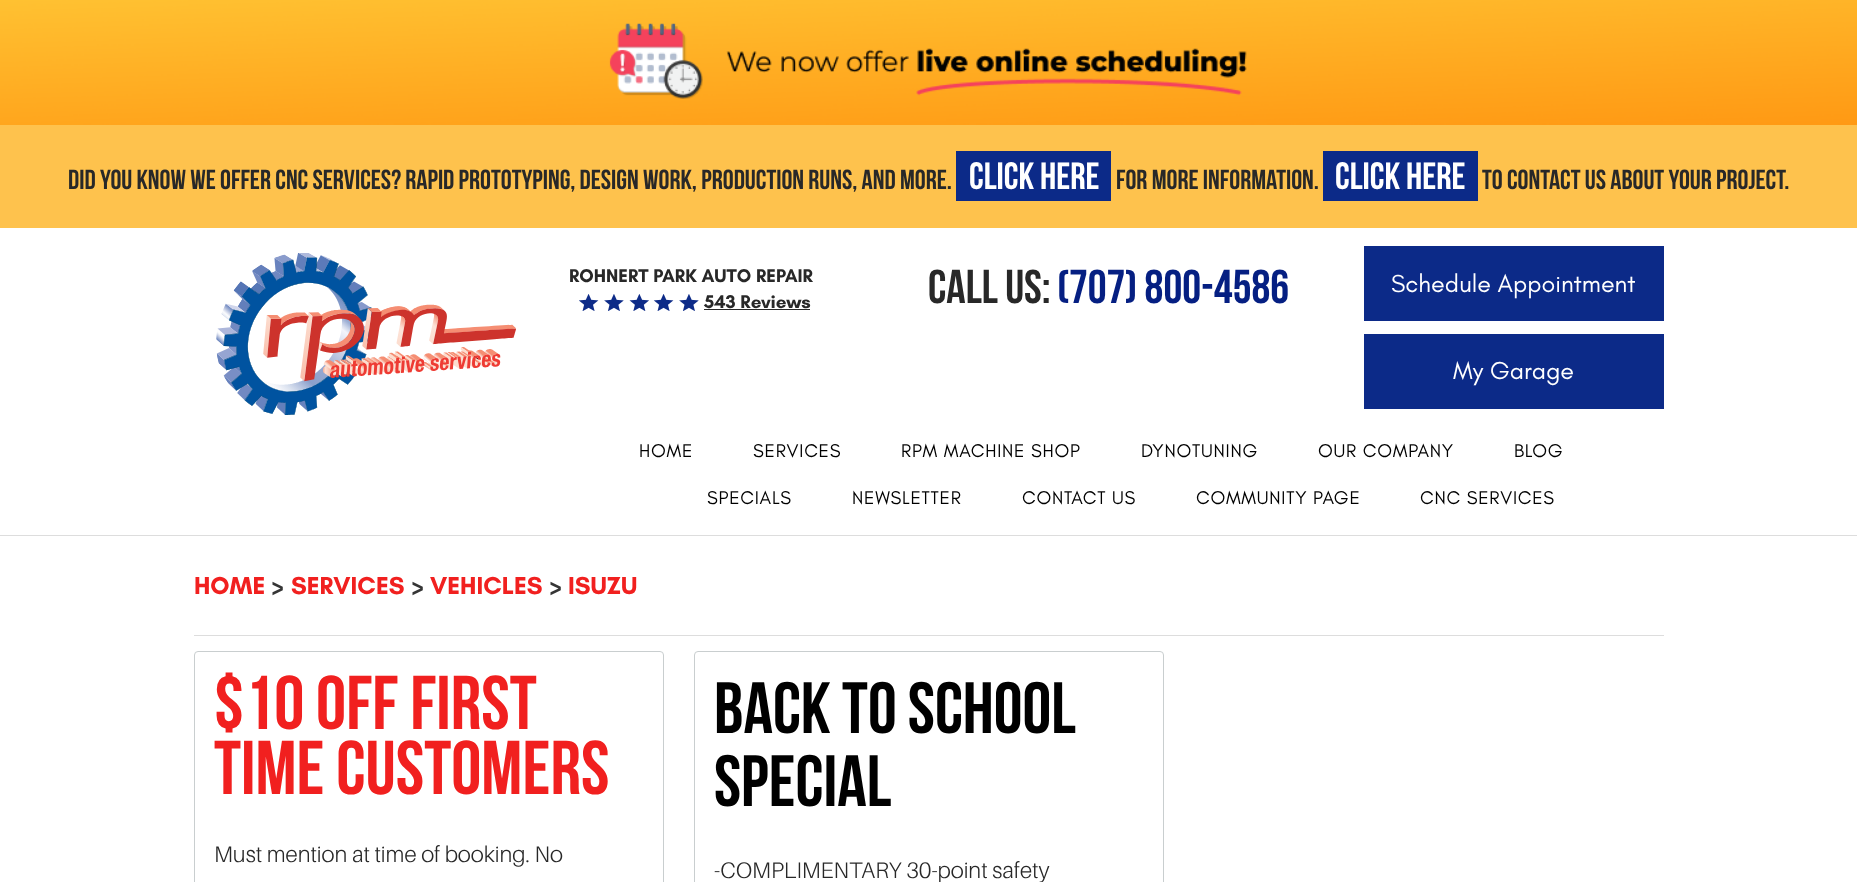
<!DOCTYPE html>
<meta charset="utf-8">
<style>body { margin: 0 } canvas { display: block }</style>
<canvas id="canvas" width="1857" height="882"></canvas>
<img id="img1" src="images/1.png" hidden>
<img id="img2" src="images/2.png" hidden>
<img id="img3" src="images/3.png" hidden>
<script>
window.onload = function () {
    const canvas = document.getElementById('canvas');
    const context = canvas.getContext('2d');
    context.miterLimit = 4;
    context.fontKerning = 'normal';

    context.fillStyle = 'rgb(255, 255, 255)';
    context.fillRect(0, 0, 1857, 882);
    context.drawImage(document.getElementById('img1'), 0, 0, 1857, 125);
    context.fillStyle = 'rgb(221, 221, 221)';
    context.fillRect(0, 535, 1857, 1);
    context.fillStyle = 'rgb(254, 194, 77)';
    context.fillRect(0, 125, 1857, 103);
    context.fillStyle = 'rgb(12, 42, 136)';
    context.fillRect(956, 151, 155, 50);
    context.fillRect(1323, 151, 155, 50);
    context.drawImage(document.getElementById('img2'), 216, 253, 300, 162);
    context.drawImage(document.getElementById('img3'), 579, 294, 120, 17);
    context.fillStyle = 'rgb(40, 40, 40)';
    context.fillRect(704, 309, 106, 1);
    context.fillStyle = 'rgb(12, 42, 136)';
    context.fillRect(1364, 246, 300, 75);
    context.fillRect(1364, 334, 300, 75);
    context.fillStyle = 'rgb(221, 221, 221)';
    context.fillRect(194, 635, 1470, 1);
    context.beginPath();
    context.roundRect(194.5, 651.5, 469, 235, 3.5);
    context.strokeStyle = 'rgb(201, 206, 207)';
    context.stroke();
    context.beginPath();
    context.roundRect(694.5, 651.5, 469, 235, 3.5);
    context.stroke();
    context.font = 'bold 27.5px Bebas Neue';
    context.fillStyle = 'rgb(40, 40, 40)';
    context.fillText('Did You Know We Offer CNC Services? Rapid Prototyping, Design Work, Production Runs, And More.', 68, 189);
    context.font = 'bold 38px Bebas Neue';
    context.fillStyle = 'rgb(255, 255, 255)';
    context.fillText('CLICK HERE', 969, 189);
    context.font = 'bold 27.5px Bebas Neue';
    context.fillStyle = 'rgb(40, 40, 40)';
    context.fillText('For More Information.', 1116, 189);
    context.font = 'bold 38px Bebas Neue';
    context.fillStyle = 'rgb(255, 255, 255)';
    context.fillText('CLICK HERE', 1335, 189);
    context.font = 'bold 27.5px Bebas Neue';
    context.fillStyle = 'rgb(40, 40, 40)';
    context.fillText('To Contact Us About Your Project.', 1482, 189);
    context.font = 'bold 18.75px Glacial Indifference';
    context.fillText('ROHNERT PARK AUTO REPAIR', 569, 282);
    context.fillText('543 Reviews', 704, 308);
    context.font = 'bold 47.5px Bebas Neue';
    context.fillText('CALL US:', 928, 303);
    context.fillStyle = 'rgb(5, 31, 130)';
    context.fillText('(707) 800-4586', 1057, 303);
    context.font = '25px Glacial Indifference';
    context.fillStyle = 'rgb(255, 255, 255)';
    context.fillText('Schedule Appointment', 1391, 292);
    context.fillText('My Garage', 1453, 379);
    context.letterSpacing = '0.75px';
    context.font = '18.75px Glacial Indifference';
    context.fillStyle = 'rgb(0, 0, 0)';
    context.fillText('HOME', 639, 457);
    context.fillText('SERVICES', 753, 457);
    context.fillText('RPM MACHINE SHOP', 901, 457);
    context.fillText('DYNOTUNING', 1141, 457);
    context.fillText('OUR COMPANY', 1318, 457);
    context.fillText('BLOG', 1514, 457);
    context.fillText('SPECIALS', 707, 504);
    context.fillText('NEWSLETTER', 852, 504);
    context.fillText('CONTACT US', 1022, 504);
    context.fillText('COMMUNITY PAGE', 1196, 504);
    context.fillText('CNC SERVICES', 1420, 504);
    context.letterSpacing = '0px';
    context.font = 'bold 25px Glacial Indifference';
    context.fillStyle = 'rgb(241, 32, 31)';
    context.fillText('HOME', 194, 594);
    context.fillStyle = 'rgb(53, 53, 53)';
    context.fillText('>', 271, 594);
    context.fillStyle = 'rgb(241, 32, 31)';
    context.fillText('SERVICES', 291, 594);
    context.fillStyle = 'rgb(53, 53, 53)';
    context.fillText('>', 411, 594);
    context.fillStyle = 'rgb(241, 32, 31)';
    context.fillText('VEHICLES', 430, 594);
    context.fillStyle = 'rgb(53, 53, 53)';
    context.fillText('>', 549, 594);
    context.fillStyle = 'rgb(241, 32, 31)';
    context.fillText('ISUZU', 568, 594);
    context.font = 'bold 76px Bebas Neue';
    context.fillText('$10 OFF FIRST', 214, 729);
    context.fillText('TIME CUSTOMERS', 214, 794);
    context.font = '300 22.5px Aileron';
    context.fillStyle = 'rgb(40, 40, 40)';
    context.fillText('Must mention at time of booking. No', 214, 862);
    context.font = 'bold 72.5px Bebas Neue';
    context.fillStyle = 'rgb(0, 0, 0)';
    context.fillText('BACK TO SCHOOL', 714, 733);
    context.fillText('SPECIAL', 714, 806);
    context.font = '300 22.5px Aileron';
    context.fillStyle = 'rgb(40, 40, 40)';
    context.fillText('-COMPLIMENTARY 30-point safety', 714, 878);
};
</script>
